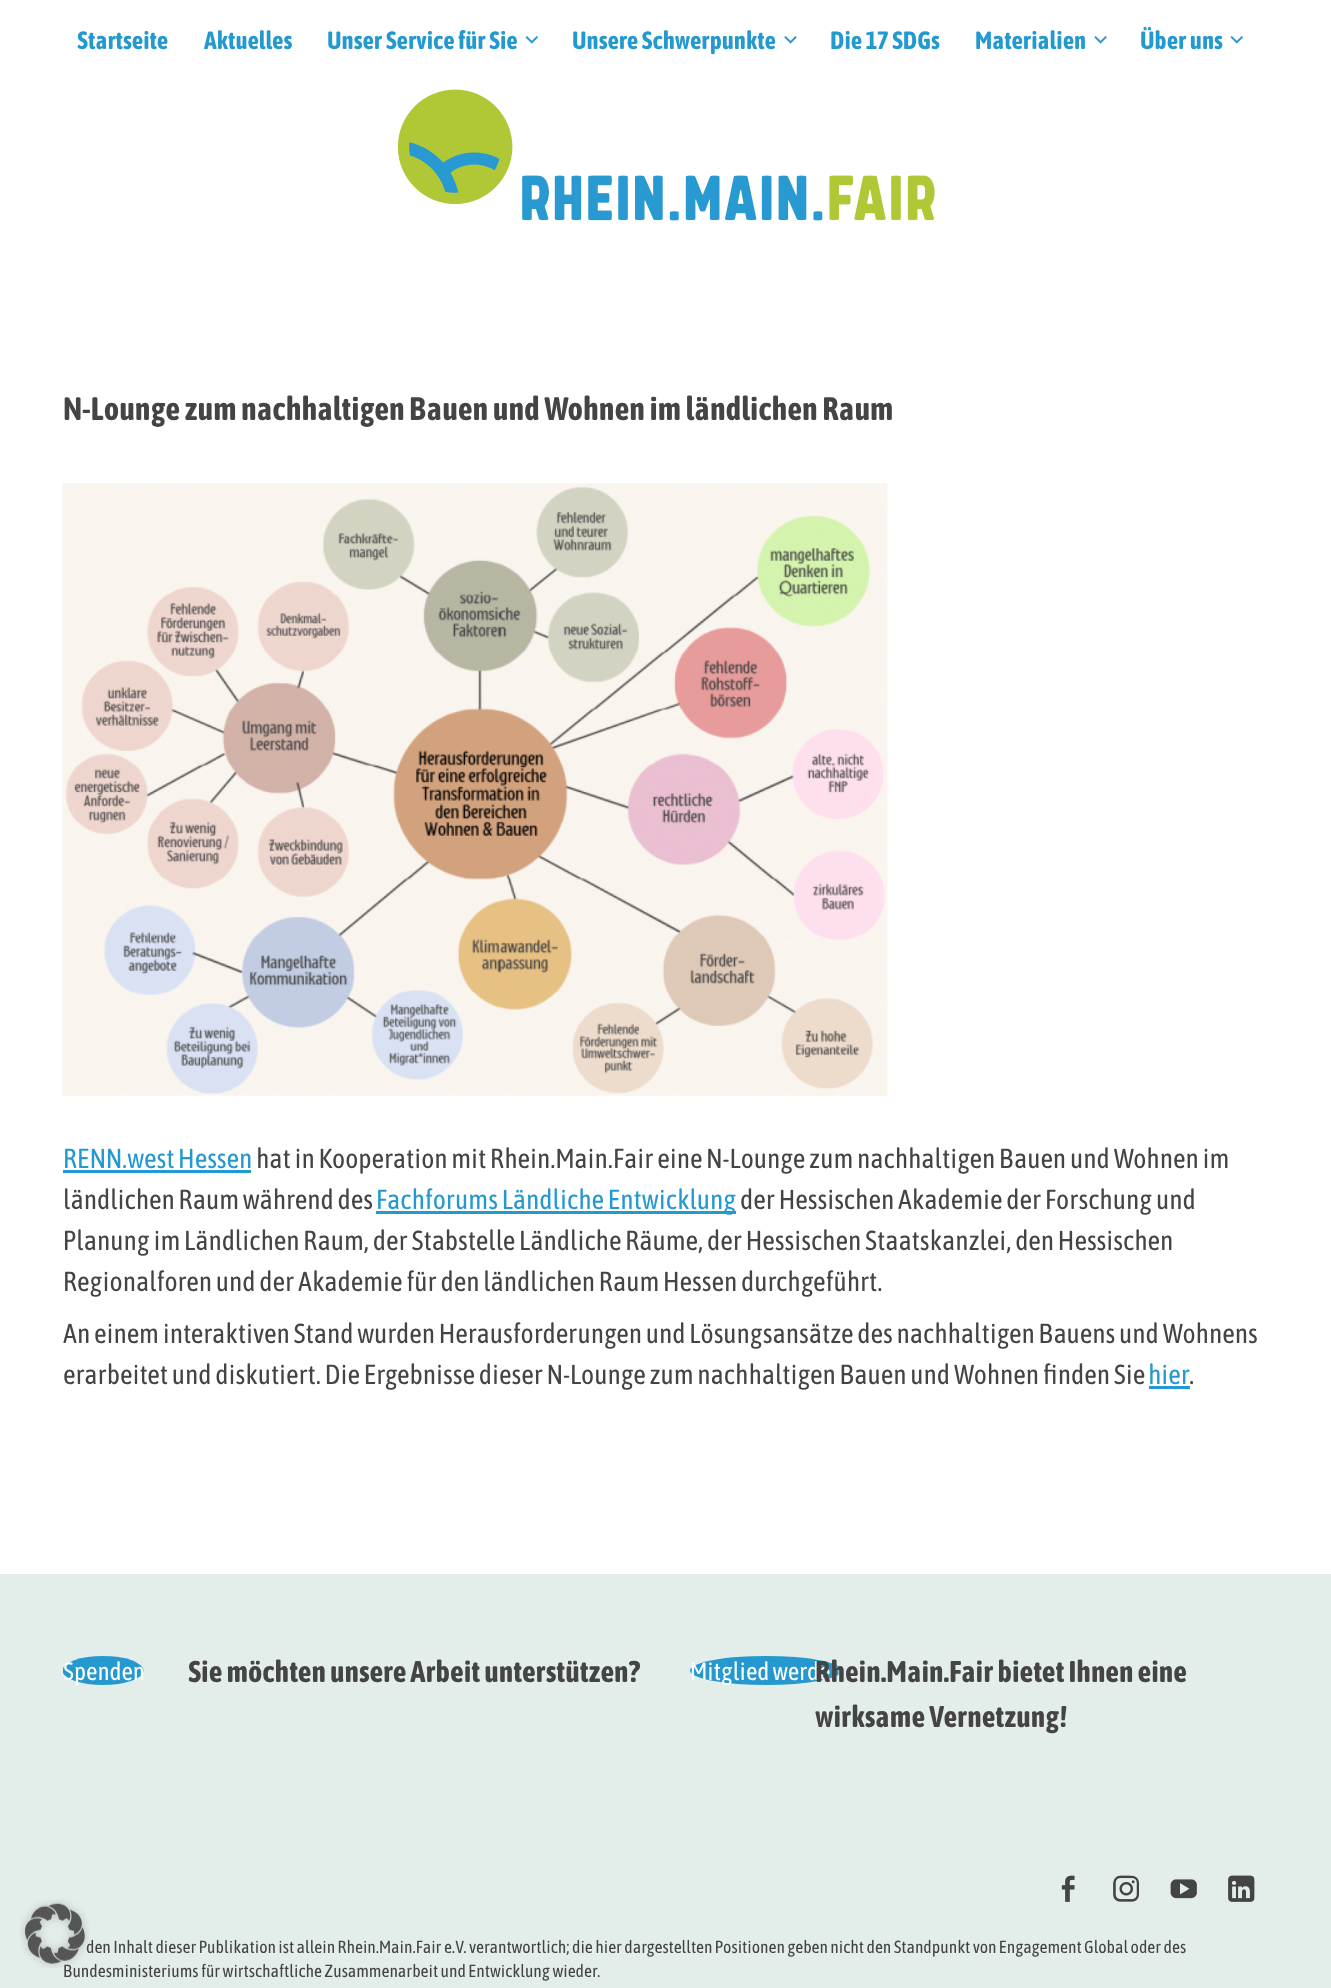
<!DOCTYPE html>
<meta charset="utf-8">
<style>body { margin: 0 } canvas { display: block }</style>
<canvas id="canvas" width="1331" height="1988"></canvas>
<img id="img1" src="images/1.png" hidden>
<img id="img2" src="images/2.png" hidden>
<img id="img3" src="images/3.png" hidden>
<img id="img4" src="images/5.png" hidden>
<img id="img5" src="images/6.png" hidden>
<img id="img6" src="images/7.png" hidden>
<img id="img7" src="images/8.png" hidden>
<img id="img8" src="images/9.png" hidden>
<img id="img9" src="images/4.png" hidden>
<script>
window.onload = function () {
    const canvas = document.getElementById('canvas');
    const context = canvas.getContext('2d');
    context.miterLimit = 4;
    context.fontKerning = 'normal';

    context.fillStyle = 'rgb(255, 255, 255)';
    context.fillRect(0, 0, 1331, 1988);
    context.drawImage(document.getElementById('img1'), 525, 36, 13, 8);
    context.drawImage(document.getElementById('img2'), 784, 36, 13, 8);
    context.drawImage(document.getElementById('img2'), 1094, 36, 13, 8);
    context.drawImage(document.getElementById('img1'), 1230, 36, 13, 8);
    context.drawImage(document.getElementById('img3'), 397, 89, 538, 132);
    context.drawImage(document.getElementById('img4'), 62, 483, 826, 613);
    context.fillStyle = 'rgb(36, 153, 207)';
    context.fillRect(63, 1170, 188, 3);
    context.fillRect(376, 1211, 360, 3);
    context.fillRect(1149, 1386, 41, 3);
    context.fillStyle = 'rgb(227, 237, 233)';
    context.fillRect(0, 1574, 1331, 414);
    context.save();
    context.beginPath();
    context.rect(63, 1654, 578, 57);
    context.clip();
    context.fillStyle = 'rgb(37, 153, 207)';
    context.beginPath();
    context.ellipse(103, 1670.5, 40.5, 14.5, 0, 0, 2 * Math.PI);
    context.fill();
    context.restore();
    context.fillStyle = 'rgb(37, 153, 207)';
    context.beginPath();
    context.ellipse(766, 1670.5, 76, 14.5, 0, 0, 2 * Math.PI);
    context.fill();
    context.drawImage(document.getElementById('img5'), 1061, 1875, 14, 27);
    context.drawImage(document.getElementById('img6'), 1113, 1875, 26, 27);
    context.drawImage(document.getElementById('img7'), 1170, 1879, 27, 20);
    context.drawImage(document.getElementById('img8'), 1228, 1875, 27, 27);
    context.font = 'bold 25px Asap Condensed';
    context.fillStyle = 'rgb(36, 153, 207)';
    context.fillText('Startseite', 77, 49);
    context.fillText('Aktuelles', 204, 49);
    context.fillText('Unser Service für Sie', 327, 49);
    context.fillText('Unsere Schwerpunkte', 572, 49);
    context.fillText('Die 17 SDGs', 830, 49);
    context.fillText('Materialien', 975, 49);
    context.fillText('Über uns', 1140, 49);
    context.font = 'bold 32.5px Asap Condensed';
    context.fillStyle = 'rgb(68, 68, 68)';
    context.fillText('N-Lounge zum nachhaltigen Bauen und Wohnen im ländlichen Raum', 63, 420);
    context.font = '27.5px Asap Condensed';
    context.fillStyle = 'rgb(36, 153, 207)';
    context.fillText('RENN.west Hessen', 63, 1168);
    context.fillStyle = 'rgb(68, 68, 68)';
    context.fillText('hat in Kooperation mit Rhein.Main.Fair eine N-Lounge zum nachhaltigen Bauen und Wohnen im', 256, 1168);
    context.fillText('ländlichen Raum während des', 63, 1209);
    context.fillStyle = 'rgb(36, 153, 207)';
    context.fillText('Fachforums Ländliche Entwicklung', 376, 1209);
    context.fillStyle = 'rgb(68, 68, 68)';
    context.fillText('der Hessischen Akademie der Forschung und', 740, 1209);
    context.fillText('Planung im Ländlichen Raum, der Stabstelle Ländliche Räume, der Hessischen Staatskanzlei, den Hessischen', 63, 1250);
    context.fillText('Regionalforen und der Akademie für den ländlichen Raum Hessen durchgeführt.', 63, 1291);
    context.fillText('An einem interaktiven Stand wurden Herausforderungen und Lösungsansätze des nachhaltigen Bauens und Wohnens', 63, 1343);
    context.fillText('erarbeitet und diskutiert. Die Ergebnisse dieser N-Lounge zum nachhaltigen Bauen und Wohnen finden Sie', 63, 1384);
    context.fillStyle = 'rgb(36, 153, 207)';
    context.fillText('hier', 1148, 1384);
    context.fillStyle = 'rgb(68, 68, 68)';
    context.fillText('.', 1189, 1384);
    context.font = '25px Asap Condensed';
    context.fillStyle = 'rgb(255, 255, 255)';
    context.fillText('Spenden', 63, 1680);
    context.font = 'bold 30px Asap Condensed';
    context.fillStyle = 'rgb(68, 68, 68)';
    context.fillText('Sie möchten unsere Arbeit unterstützen?', 188, 1682);
    context.font = '25px Asap Condensed';
    context.fillStyle = 'rgb(255, 255, 255)';
    context.fillText('Mitglied werden', 690, 1680);
    context.font = 'bold 30px Asap Condensed';
    context.fillStyle = 'rgb(68, 68, 68)';
    context.fillText('Rhein.Main.Fair bietet Ihnen eine', 815, 1682);
    context.fillText('wirksame Vernetzung!', 815, 1727);
    context.font = '17.5px Asap Condensed';
    context.fillText('den Inhalt dieser Publikation ist allein Rhein.Main.Fair e.V. verantwortlich; die hier dargestellten Positionen geben nicht den Standpunkt von Engagement Global oder des', 86, 1953);
    context.fillText('Bundesministeriums für wirtschaftliche Zusammenarbeit und Entwicklung wieder.', 63, 1977);
    context.drawImage(document.getElementById('img9'), 20, 1899, 70, 69);
};
</script>
